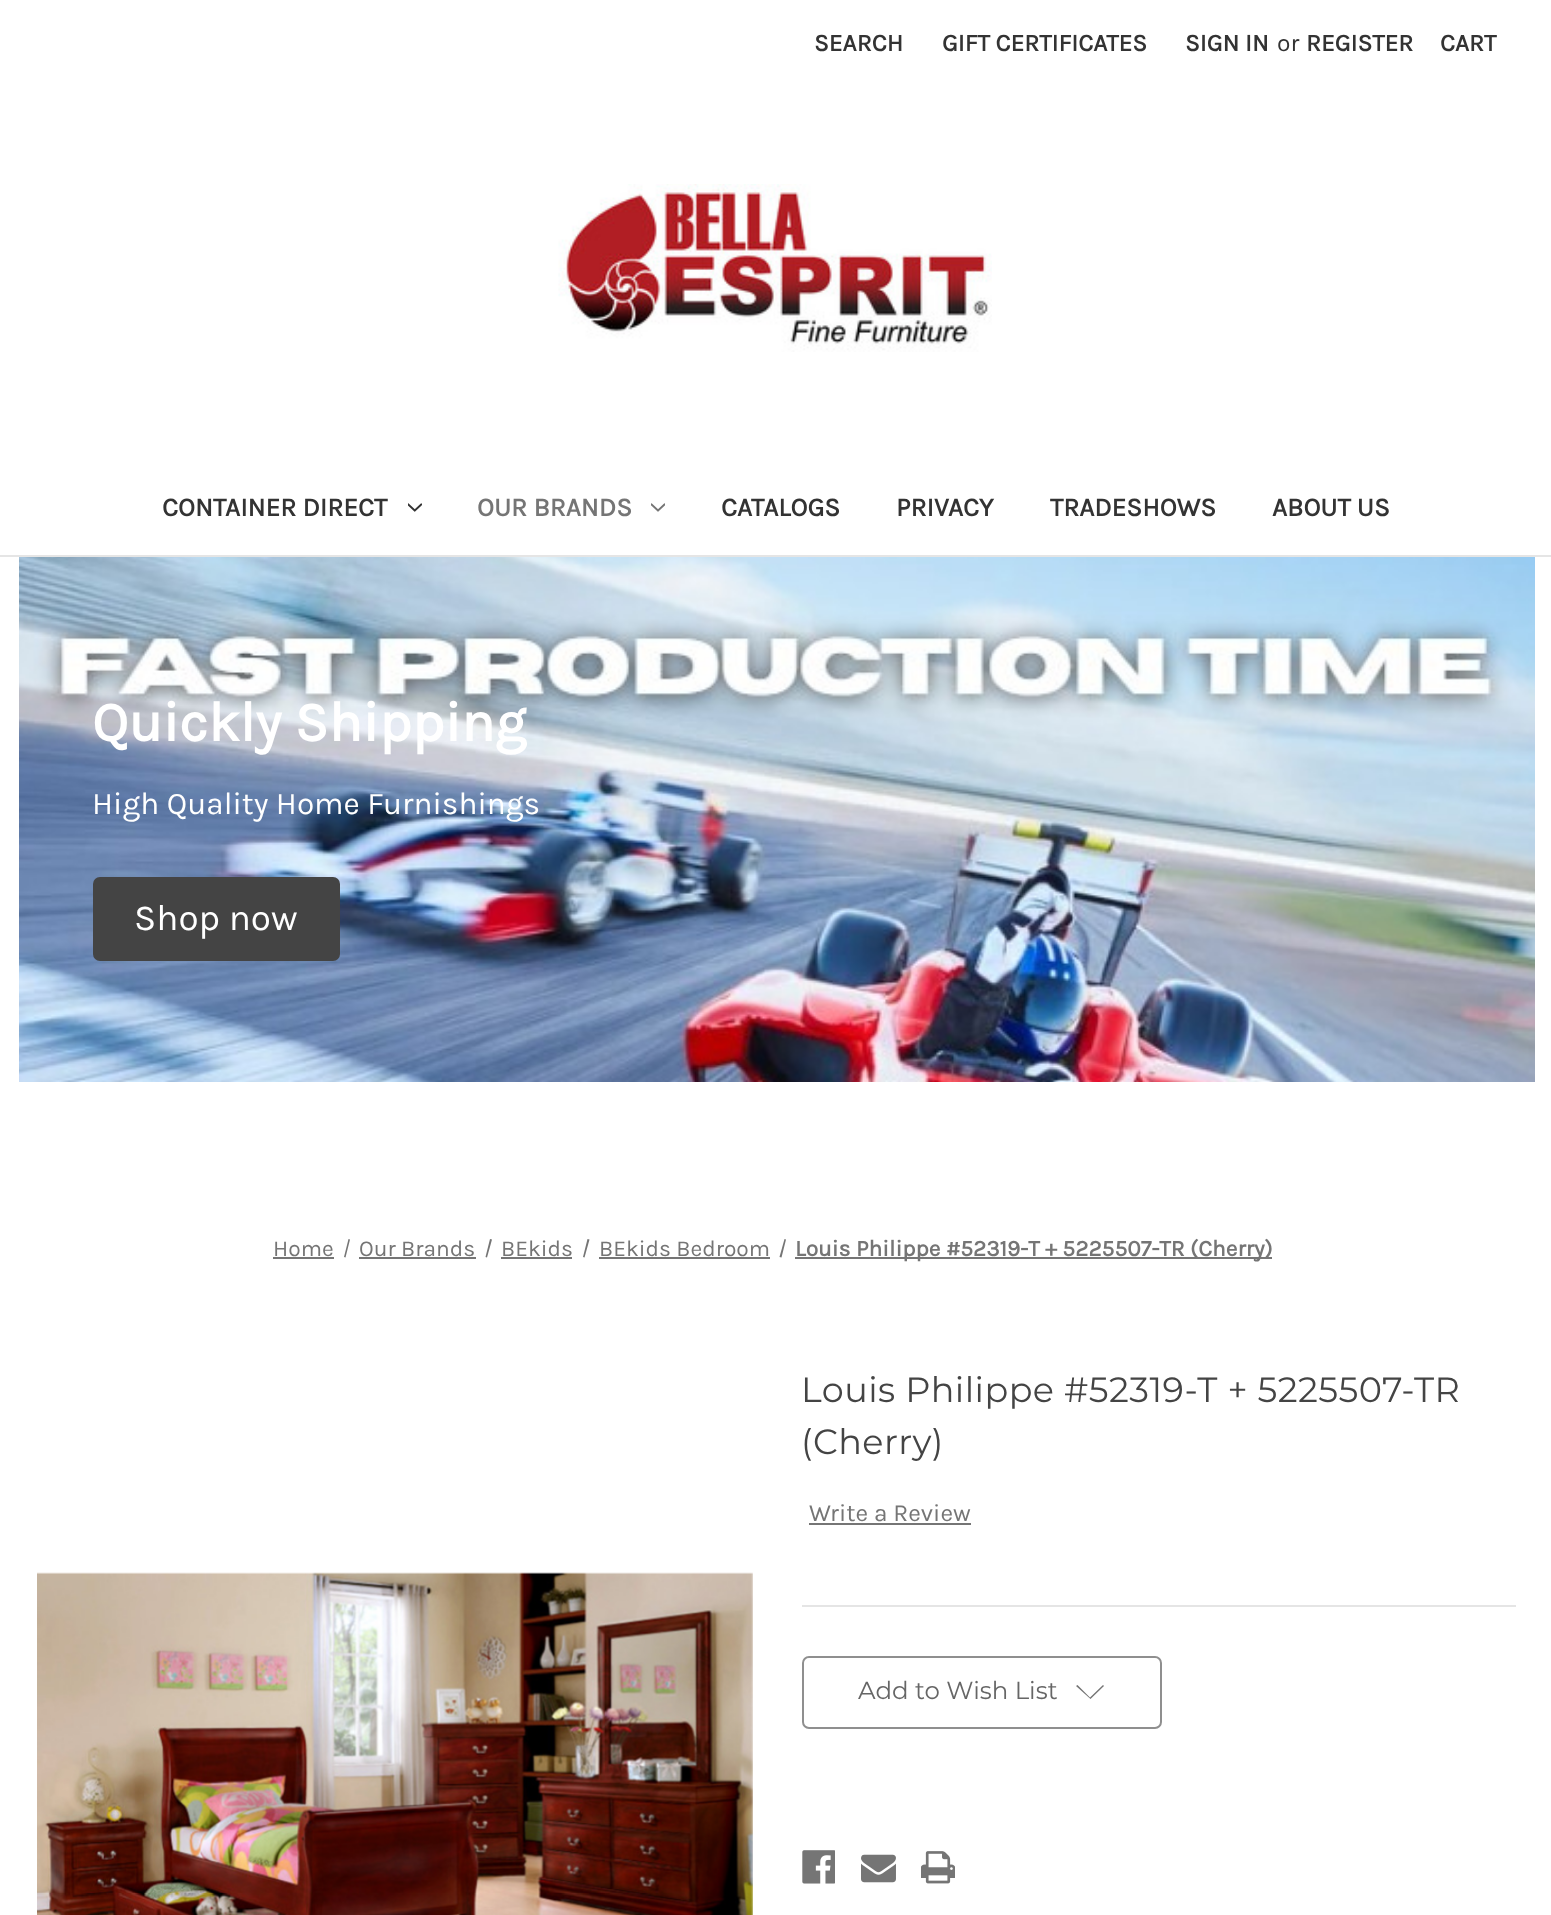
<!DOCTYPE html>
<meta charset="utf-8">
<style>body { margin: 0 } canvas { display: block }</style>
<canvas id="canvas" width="1551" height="1915"></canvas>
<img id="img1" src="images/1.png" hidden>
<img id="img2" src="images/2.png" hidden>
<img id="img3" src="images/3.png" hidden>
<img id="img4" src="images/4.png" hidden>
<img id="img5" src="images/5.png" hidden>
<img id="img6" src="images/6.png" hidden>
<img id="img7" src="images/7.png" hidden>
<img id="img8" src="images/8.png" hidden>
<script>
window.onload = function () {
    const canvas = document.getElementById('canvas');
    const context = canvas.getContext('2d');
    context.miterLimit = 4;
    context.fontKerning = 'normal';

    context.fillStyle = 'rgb(255, 255, 255)';
    context.fillRect(0, 0, 1551, 1915);
    context.fillStyle = 'rgb(229, 229, 229)';
    context.fillRect(0, 555, 1551, 2);
    context.drawImage(document.getElementById('img1'), 558, 184, 434, 168);
    context.drawImage(document.getElementById('img2'), 408, 503, 14, 9);
    context.drawImage(document.getElementById('img3'), 651, 503, 14, 9);
    context.drawImage(document.getElementById('img4'), 19, 557, 1516, 525);
    context.fillStyle = 'rgb(68, 68, 68)';
    context.beginPath();
    context.roundRect(93, 877, 247, 84, 7);
    context.fill();
    context.fillStyle = 'rgb(117, 117, 117)';
    context.fillRect(273, 1257, 61, 2);
    context.beginPath();
    context.moveTo(348.5, 1239);
    context.lineTo(350, 1239.5);
    context.lineTo(345.5, 1257.5);
    context.lineTo(344, 1257);
    context.closePath();
    context.fill();
    context.fillRect(359, 1257, 117, 2);
    context.beginPath();
    context.moveTo(490, 1239);
    context.lineTo(492, 1239.5);
    context.lineTo(487, 1257.5);
    context.lineTo(485.5, 1257);
    context.closePath();
    context.fill();
    context.fillRect(501, 1257, 71, 2);
    context.beginPath();
    context.moveTo(587.5, 1239);
    context.lineTo(589.5, 1239.5);
    context.lineTo(584.5, 1257.5);
    context.lineTo(583, 1257);
    context.closePath();
    context.fill();
    context.fillRect(599, 1257, 171, 2);
    context.beginPath();
    context.moveTo(784.5, 1239);
    context.lineTo(786, 1239.5);
    context.lineTo(781.5, 1257.5);
    context.lineTo(779.5, 1257);
    context.closePath();
    context.fill();
    context.fillRect(795, 1257, 477, 2);
    context.fillStyle = 'rgb(229, 229, 229)';
    context.fillRect(802, 1605, 714, 2);
    context.fillStyle = 'rgb(117, 117, 117)';
    context.fillRect(809, 1523, 162, 2);
    context.drawImage(document.getElementById('img5'), 37, 1572, 716, 343);
    context.beginPath();
    context.roundRect(803, 1657, 358, 71, 6);
    context.strokeStyle = 'rgb(143, 143, 143)';
    context.lineWidth = 2;
    context.stroke();
    context.beginPath();
    context.moveTo(1090, 1697.5);
    context.lineTo(1103, 1685);
    context.lineTo(1104, 1686);
    context.lineTo(1090.5, 1699);
    context.lineTo(1076, 1686);
    context.lineTo(1077.5, 1685);
    context.closePath();
    context.fill('evenodd');
    context.drawImage(document.getElementById('img6'), 802, 1850, 33, 34);
    context.drawImage(document.getElementById('img7'), 861, 1854, 35, 29);
    context.drawImage(document.getElementById('img8'), 921, 1851, 34, 33);
    context.font = 'bold 24.5px Karla';
    context.fillStyle = 'rgb(51, 51, 51)';
    context.fillText('SEARCH', 814, 51);
    context.fillText('GIFT CERTIFICATES', 942, 51);
    context.fillText('SIGN IN', 1185, 51);
    context.font = '24.5px Karla';
    context.fillText('or', 1277, 51);
    context.font = 'bold 24.5px Karla';
    context.fillText('REGISTER', 1306, 51);
    context.fillText('CART', 1440, 51);
    context.font = 'bold 26.25px Karla';
    context.fillText('CONTAINER DIRECT', 162, 516);
    context.fillStyle = 'rgb(117, 117, 117)';
    context.fillText('OUR BRANDS', 477, 516);
    context.fillStyle = 'rgb(51, 51, 51)';
    context.fillText('CATALOGS', 721, 516);
    context.fillText('PRIVACY', 896, 516);
    context.fillText('TRADESHOWS', 1050, 516);
    context.fillText('ABOUT US', 1272, 516);
    context.font = 'bold 56px Karla';
    context.fillStyle = 'rgb(255, 255, 255)';
    context.fillText('Quickly Shipping', 92, 741);
    context.font = '31.5px Karla';
    context.fillText('High Quality Home Furnishings', 92, 814);
    context.font = '36.75px Karla';
    context.fillText('Shop now', 134, 930);
    context.font = '22.75px Karla';
    context.fillStyle = 'rgb(117, 117, 117)';
    context.fillText('Home', 273, 1256);
    context.fillText('Our Brands', 359, 1256);
    context.fillText('BEkids', 501, 1256);
    context.fillText('BEkids Bedroom', 599, 1256);
    context.font = 'bold 22.75px Karla';
    context.fillText('Louis Philippe #52319-T + 5225507-TR (Cherry)', 795, 1256);
    context.letterSpacing = '0.45px';
    context.font = '35px Montserrat';
    context.fillStyle = 'rgb(68, 68, 68)';
    context.fillText('Louis Philippe #52319-T + 5225507-TR', 801, 1402);
    context.fillText('(Cherry)', 801, 1454);
    context.letterSpacing = '0px';
    context.font = '24.5px Karla';
    context.fillStyle = 'rgb(117, 117, 117)';
    context.fillText('Write a Review', 809, 1521);
    context.font = '24.5px Montserrat';
    context.fillStyle = 'rgb(102, 102, 102)';
    context.fillText('Add to Wish List', 858, 1699);
};
</script>
